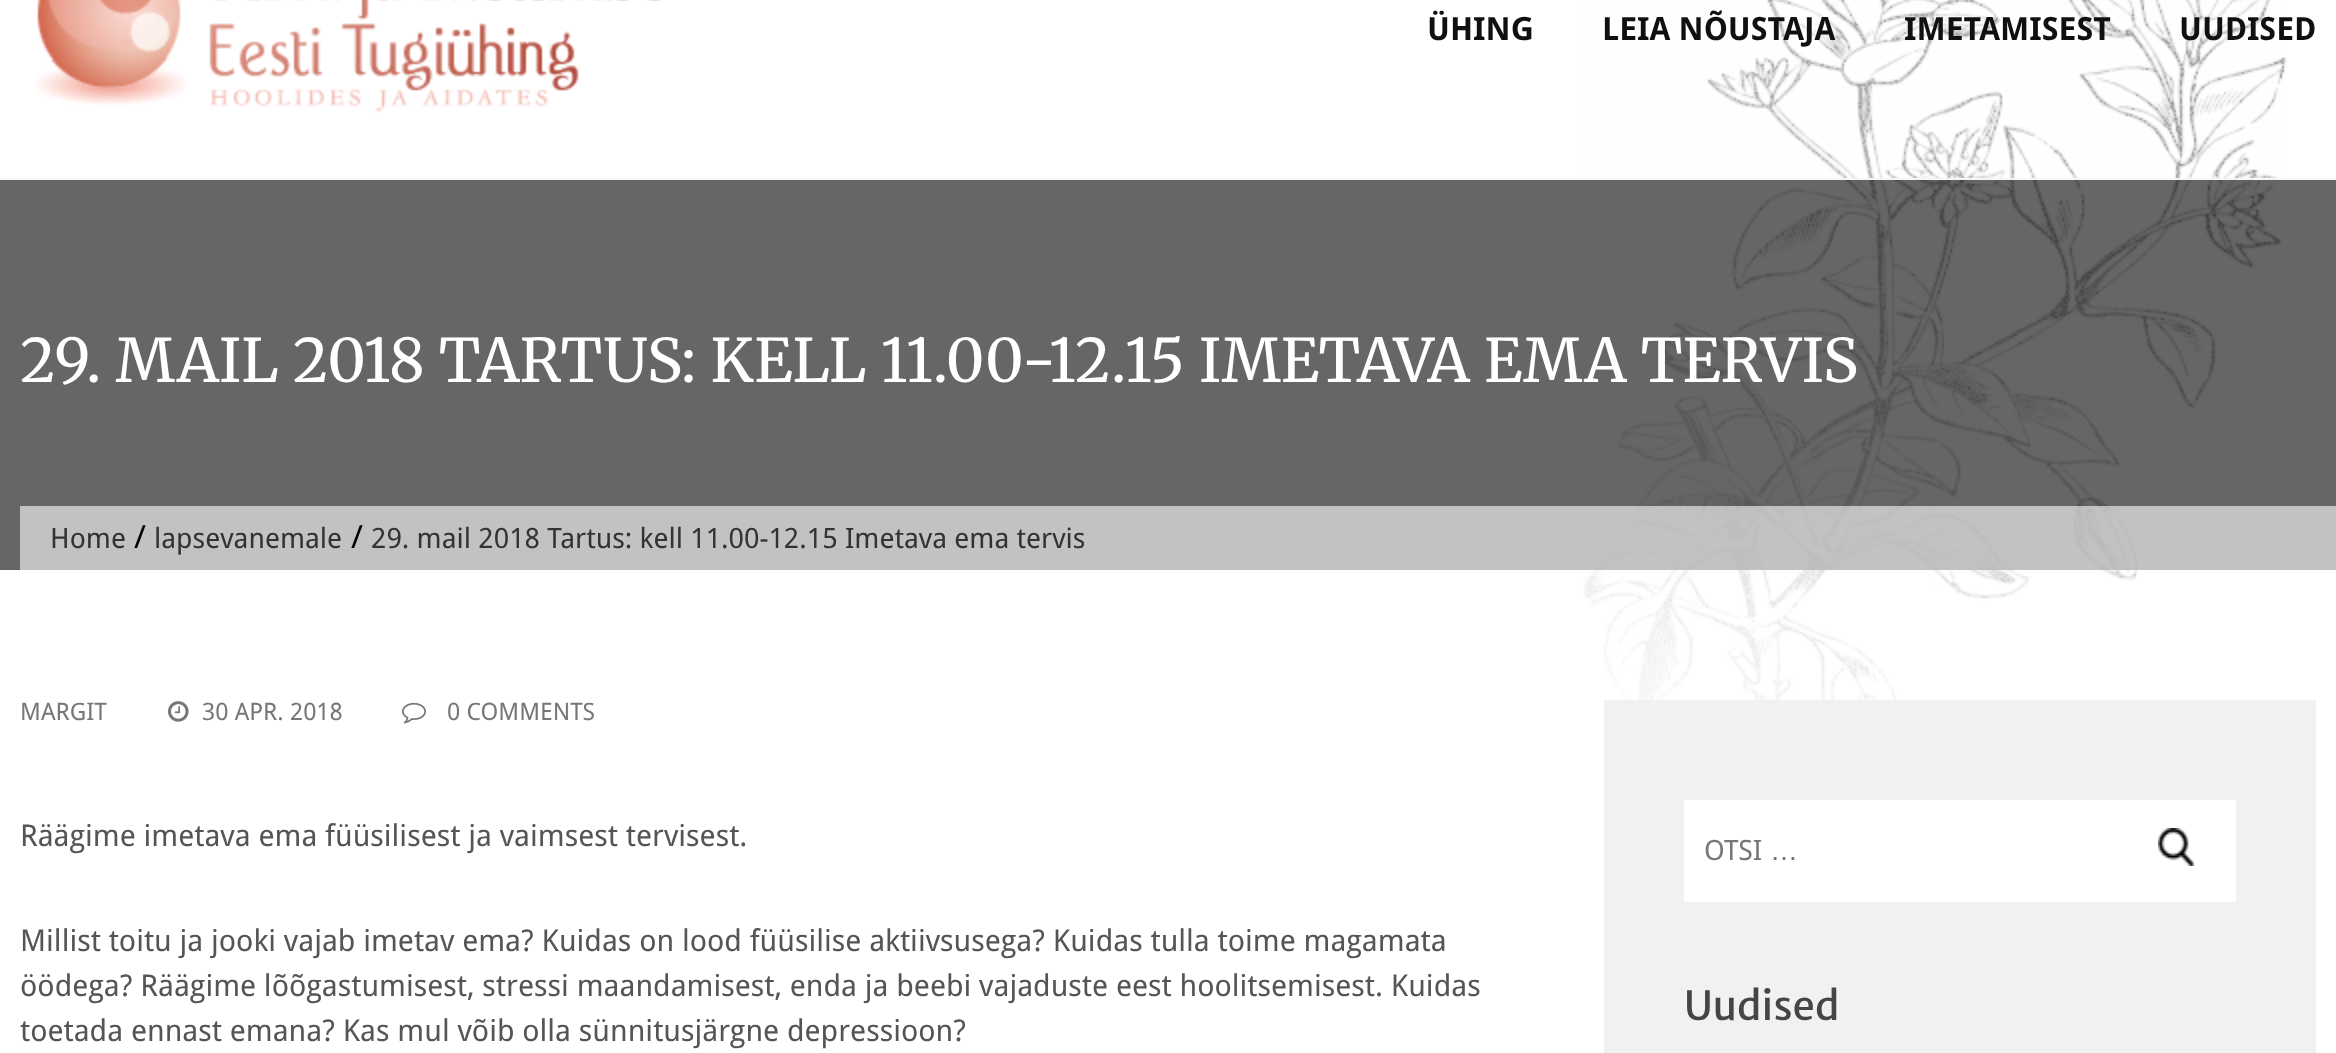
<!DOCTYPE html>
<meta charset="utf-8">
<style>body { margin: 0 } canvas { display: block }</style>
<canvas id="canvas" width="2336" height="1053"></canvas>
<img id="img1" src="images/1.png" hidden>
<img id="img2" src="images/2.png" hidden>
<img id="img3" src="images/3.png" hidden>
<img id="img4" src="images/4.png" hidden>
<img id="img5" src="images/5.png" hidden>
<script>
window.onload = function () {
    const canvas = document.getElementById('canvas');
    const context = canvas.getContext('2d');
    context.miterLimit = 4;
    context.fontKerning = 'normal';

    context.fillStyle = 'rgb(255, 255, 255)';
    context.fillRect(0, 0, 2336, 1053);
    context.drawImage(document.getElementById('img1'), 1583, 0, 704, 757);
    context.fillStyle = 'rgb(246, 246, 246)';
    context.fillRect(0, 178, 2336, 2);
    context.drawImage(document.getElementById('img2'), 35, 0, 627, 113);
    context.fillStyle = 'rgba(0, 0, 0, 0.6)';
    context.fillRect(0, 180, 2336, 390);
    context.fillStyle = 'rgba(255, 255, 255, 0.6)';
    context.fillRect(20, 506, 2316, 64);
    context.drawImage(document.getElementById('img3'), 168, 701, 21, 21);
    context.drawImage(document.getElementById('img4'), 402, 702, 24, 22);
    context.fillStyle = 'rgb(241, 241, 241)';
    context.fillRect(1604, 700, 712, 353);
    context.fillStyle = 'rgb(255, 255, 255)';
    context.fillRect(1684, 800, 552, 102);
    context.drawImage(document.getElementById('img5'), 2158, 828, 36, 38);
    context.font = 'bold 32px Droid Sans';
    context.fillStyle = 'rgb(16, 16, 16)';
    context.fillText('ÜHING', 1427, 40);
    context.fillText('LEIA NÕUSTAJA', 1602, 40);
    context.fillText('IMETAMISEST', 1904, 40);
    context.fillText('UUDISED', 2179, 40);
    context.font = '60px Merriweather';
    context.fillStyle = 'rgb(255, 255, 255)';
    context.fillText('29. MAIL 2018 TARTUS: KELL 11.00-12.15 IMETAVA EMA TERVIS', 20, 382);
    context.font = '28px Droid Sans';
    context.fillStyle = 'rgb(51, 51, 51)';
    context.fillText('Home', 50, 548);
    context.font = '32px Droid Sans';
    context.fillStyle = 'rgb(0, 0, 0)';
    context.fillText('/', 134, 548);
    context.font = '28px Droid Sans';
    context.fillStyle = 'rgb(51, 51, 51)';
    context.fillText('lapsevanemale', 154, 548);
    context.font = '32px Droid Sans';
    context.fillStyle = 'rgb(0, 0, 0)';
    context.fillText('/', 351, 548);
    context.font = '28px Droid Sans';
    context.fillStyle = 'rgb(51, 51, 51)';
    context.fillText('29. mail 2018 Tartus: kell 11.00-12.15 Imetava ema tervis', 371, 548);
    context.font = '24px Droid Sans';
    context.fillStyle = 'rgb(119, 119, 119)';
    context.fillText('MARGIT', 20, 720);
    context.fillText('30 APR. 2018', 202, 720);
    context.fillText('0 COMMENTS', 447, 720);
    context.font = '30px Droid Sans';
    context.fillStyle = 'rgb(85, 85, 85)';
    context.fillText('Räägime imetava ema füüsilisest ja vaimsest tervisest.', 20, 846);
    context.fillText('Millist toitu ja jooki vajab imetav ema? Kuidas on lood füüsilise aktiivsusega? Kuidas tulla toime magamata', 20, 951);
    context.fillText('öödega? Räägime lõõgastumisest, stressi maandamisest, enda ja beebi vajaduste eest hoolitsemisest. Kuidas', 20, 996);
    context.fillText('toetada ennast emana? Kas mul võib olla sünnitusjärgne depressioon?', 20, 1041);
    context.font = '28px Droid Sans';
    context.fillStyle = 'rgb(119, 119, 119)';
    context.fillText('OTSI', 1704, 860);
    context.font = '28px Liberation Sans';
    context.fillText('…', 1770, 860);
    context.font = '40px Merriweather Sans';
    context.fillStyle = 'rgb(69, 69, 69)';
    context.fillText('Uudised', 1684, 1020);
};
</script>
